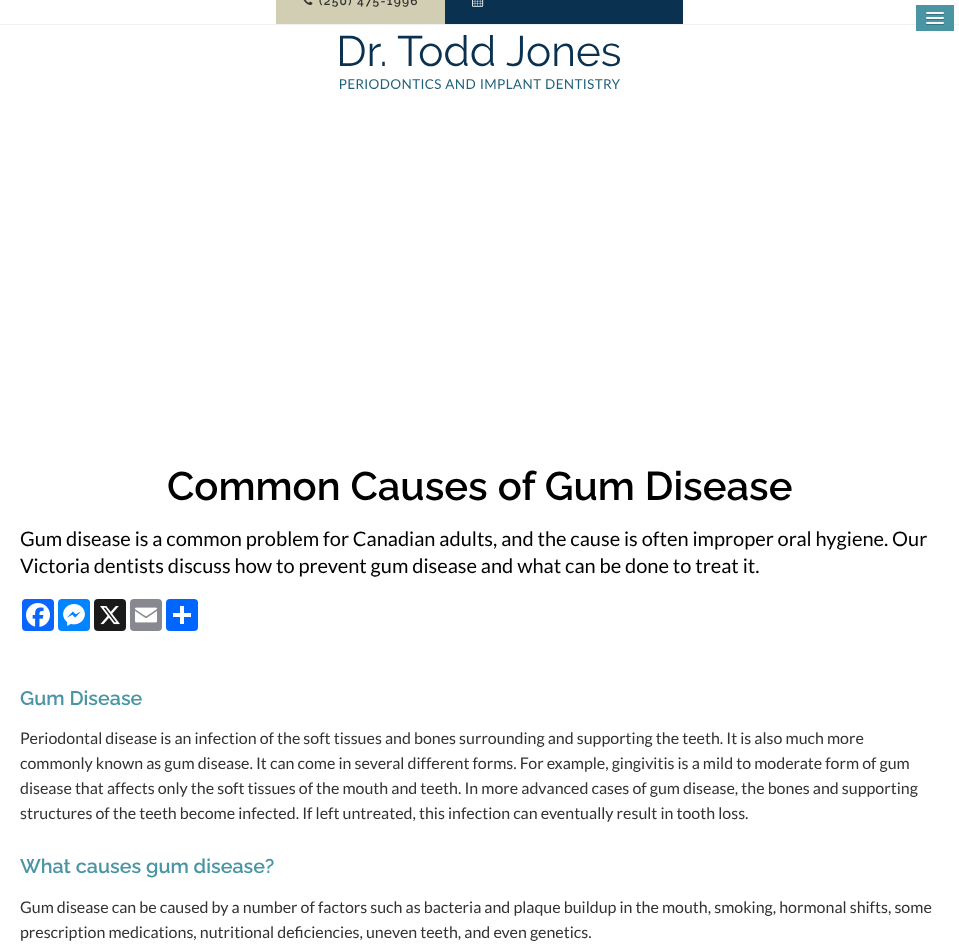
<!DOCTYPE html>
<meta charset="utf-8">
<style>body { margin: 0 } canvas { display: block }</style>
<canvas id="canvas" width="959" height="945"></canvas>
<img id="img1" src="images/1.png" hidden>
<img id="img2" src="images/2.png" hidden>
<img id="img3" src="images/3.png" hidden>
<img id="img4" src="images/4.png" hidden>
<img id="img5" src="images/5.png" hidden>
<img id="img6" src="images/6.png" hidden>
<img id="img7" src="images/7.png" hidden>
<script>
window.onload = function () {
    const canvas = document.getElementById('canvas');
    const context = canvas.getContext('2d');
    context.miterLimit = 4;
    context.fontKerning = 'normal';

    context.fillStyle = 'rgb(255, 255, 255)';
    context.fillRect(0, 0, 959, 945);
    context.fillStyle = 'rgb(241, 241, 241)';
    context.fillRect(0, 24, 959, 1);
    context.fillStyle = 'rgb(210, 206, 179)';
    context.fillRect(276, 0, 169, 24);
    context.drawImage(document.getElementById('img1'), 303, 0, 10, 5);
    context.fillStyle = 'rgb(10, 49, 80)';
    context.fillRect(445, 0, 238, 24);
    context.drawImage(document.getElementById('img2'), 472, 0, 12, 7);
    context.drawImage(document.getElementById('img3'), 340, 35, 280, 54);
    context.fillStyle = 'rgb(8, 102, 255)';
    context.beginPath();
    context.roundRect(22, 599, 32, 32, 4);
    context.fill();
    context.drawImage(document.getElementById('img4'), 26, 603, 24, 24);
    context.fillStyle = 'rgb(0, 132, 255)';
    context.beginPath();
    context.roundRect(58, 599, 32, 32, 4);
    context.fill();
    context.drawImage(document.getElementById('img5'), 63, 604, 22, 22);
    context.fillStyle = 'rgb(26, 26, 26)';
    context.beginPath();
    context.roundRect(94, 599, 32, 32, 4);
    context.fill();
    context.drawImage(document.getElementById('img6'), 100, 606, 20, 19);
    context.fillStyle = 'rgb(136, 137, 144)';
    context.beginPath();
    context.roundRect(130, 599, 32, 32, 4);
    context.fill();
    context.drawImage(document.getElementById('img7'), 135, 607, 22, 16);
    context.fillStyle = 'rgb(1, 102, 255)';
    context.beginPath();
    context.roundRect(166, 599, 32, 32, 4);
    context.fill();
    context.fillStyle = 'rgb(255, 255, 255)';
    context.fillRect(180, 606, 4, 18);
    context.fillRect(173, 613, 18, 4);
    context.fillStyle = 'rgb(74, 149, 164)';
    context.fillRect(916, 5, 38, 26);
    context.fillStyle = 'rgb(56, 112, 123)';
    context.beginPath();
    context.moveTo(926, 13.5);
    context.bezierCurveTo(925, 15.5, 929.5, 15, 929.5, 15);
    context.lineTo(940.5, 15);
    context.bezierCurveTo(940.5, 15, 945, 15.5, 944, 13.5);
    context.bezierCurveTo(943, 14.5, 936.5, 14, 935, 14);
    context.bezierCurveTo(933.5, 14, 927, 14.5, 926, 13.5);
    context.closePath();
    context.fill();
    context.fillStyle = 'rgb(245, 245, 245)';
    context.beginPath();
    context.roundRect(926, 12, 18, 2, 1);
    context.fill();
    context.fillStyle = 'rgb(56, 112, 123)';
    context.beginPath();
    context.moveTo(926, 18.5);
    context.bezierCurveTo(925, 20.5, 929.5, 20, 929.5, 20);
    context.lineTo(940.5, 20);
    context.bezierCurveTo(940.5, 20, 945, 20.5, 944, 18.5);
    context.bezierCurveTo(943, 19.5, 936.5, 19, 935, 19);
    context.bezierCurveTo(933.5, 19, 927, 19.5, 926, 18.5);
    context.closePath();
    context.fill();
    context.fillStyle = 'rgb(245, 245, 245)';
    context.beginPath();
    context.roundRect(926, 17, 18, 2, 1);
    context.fill();
    context.fillStyle = 'rgb(56, 112, 123)';
    context.beginPath();
    context.moveTo(926, 23.5);
    context.bezierCurveTo(925, 25.5, 929.5, 25, 929.5, 25);
    context.lineTo(940.5, 25);
    context.bezierCurveTo(940.5, 25, 945, 25.5, 944, 23.5);
    context.bezierCurveTo(943, 24.5, 936.5, 24, 935, 24);
    context.bezierCurveTo(933.5, 24, 927, 24.5, 926, 23.5);
    context.closePath();
    context.fill();
    context.fillStyle = 'rgb(245, 245, 245)';
    context.beginPath();
    context.roundRect(926, 22, 18, 2, 1);
    context.fill();
    context.letterSpacing = '1.25px';
    context.font = '100 12px Raleway';
    context.fillStyle = 'rgb(51, 51, 51)';
    context.fillText('(250) 475-1996', 319, 5);
    context.letterSpacing = '0px';
    context.font = '100 40px Raleway';
    context.fillStyle = 'rgb(0, 0, 0)';
    context.fillText('Common Causes of Gum Disease', 167, 500);
    context.font = '20px Lato';
    context.fillText('Gum disease is a common problem for Canadian adults, and the cause is often improper oral hygiene. Our', 20, 546);
    context.fillText('Victoria dentists discuss how to prevent gum disease and what can be done to treat it.', 20, 573);
    context.font = '100 19.75px Raleway';
    context.fillStyle = 'rgb(74, 149, 164)';
    context.fillText('Gum Disease', 20, 705);
    context.font = '16px Lato';
    context.fillStyle = 'rgb(51, 51, 51)';
    context.fillText('Periodontal disease is an infection of the soft tissues and bones surrounding and supporting the teeth. It is also much more', 20, 744);
    context.fillText('commonly known as gum disease. It can come in several different forms. For example, gingivitis is a mild to moderate form of gum', 20, 769);
    context.fillText('disease that affects only the soft tissues of the mouth and teeth. In more advanced cases of gum disease, the bones and supporting', 20, 794);
    context.fillText('structures of the teeth become infected. If left untreated, this infection can eventually result in tooth loss.', 20, 819);
    context.font = '100 19.75px Raleway';
    context.fillStyle = 'rgb(74, 149, 164)';
    context.fillText('What causes gum disease?', 20, 873);
    context.font = '16px Lato';
    context.fillStyle = 'rgb(51, 51, 51)';
    context.fillText('Gum disease can be caused by a number of factors such as bacteria and plaque buildup in the mouth, smoking, hormonal shifts, some', 20, 913);
    context.fillText('prescription medications, nutritional deficiencies, uneven teeth, and even genetics.', 20, 938);
};
</script>
